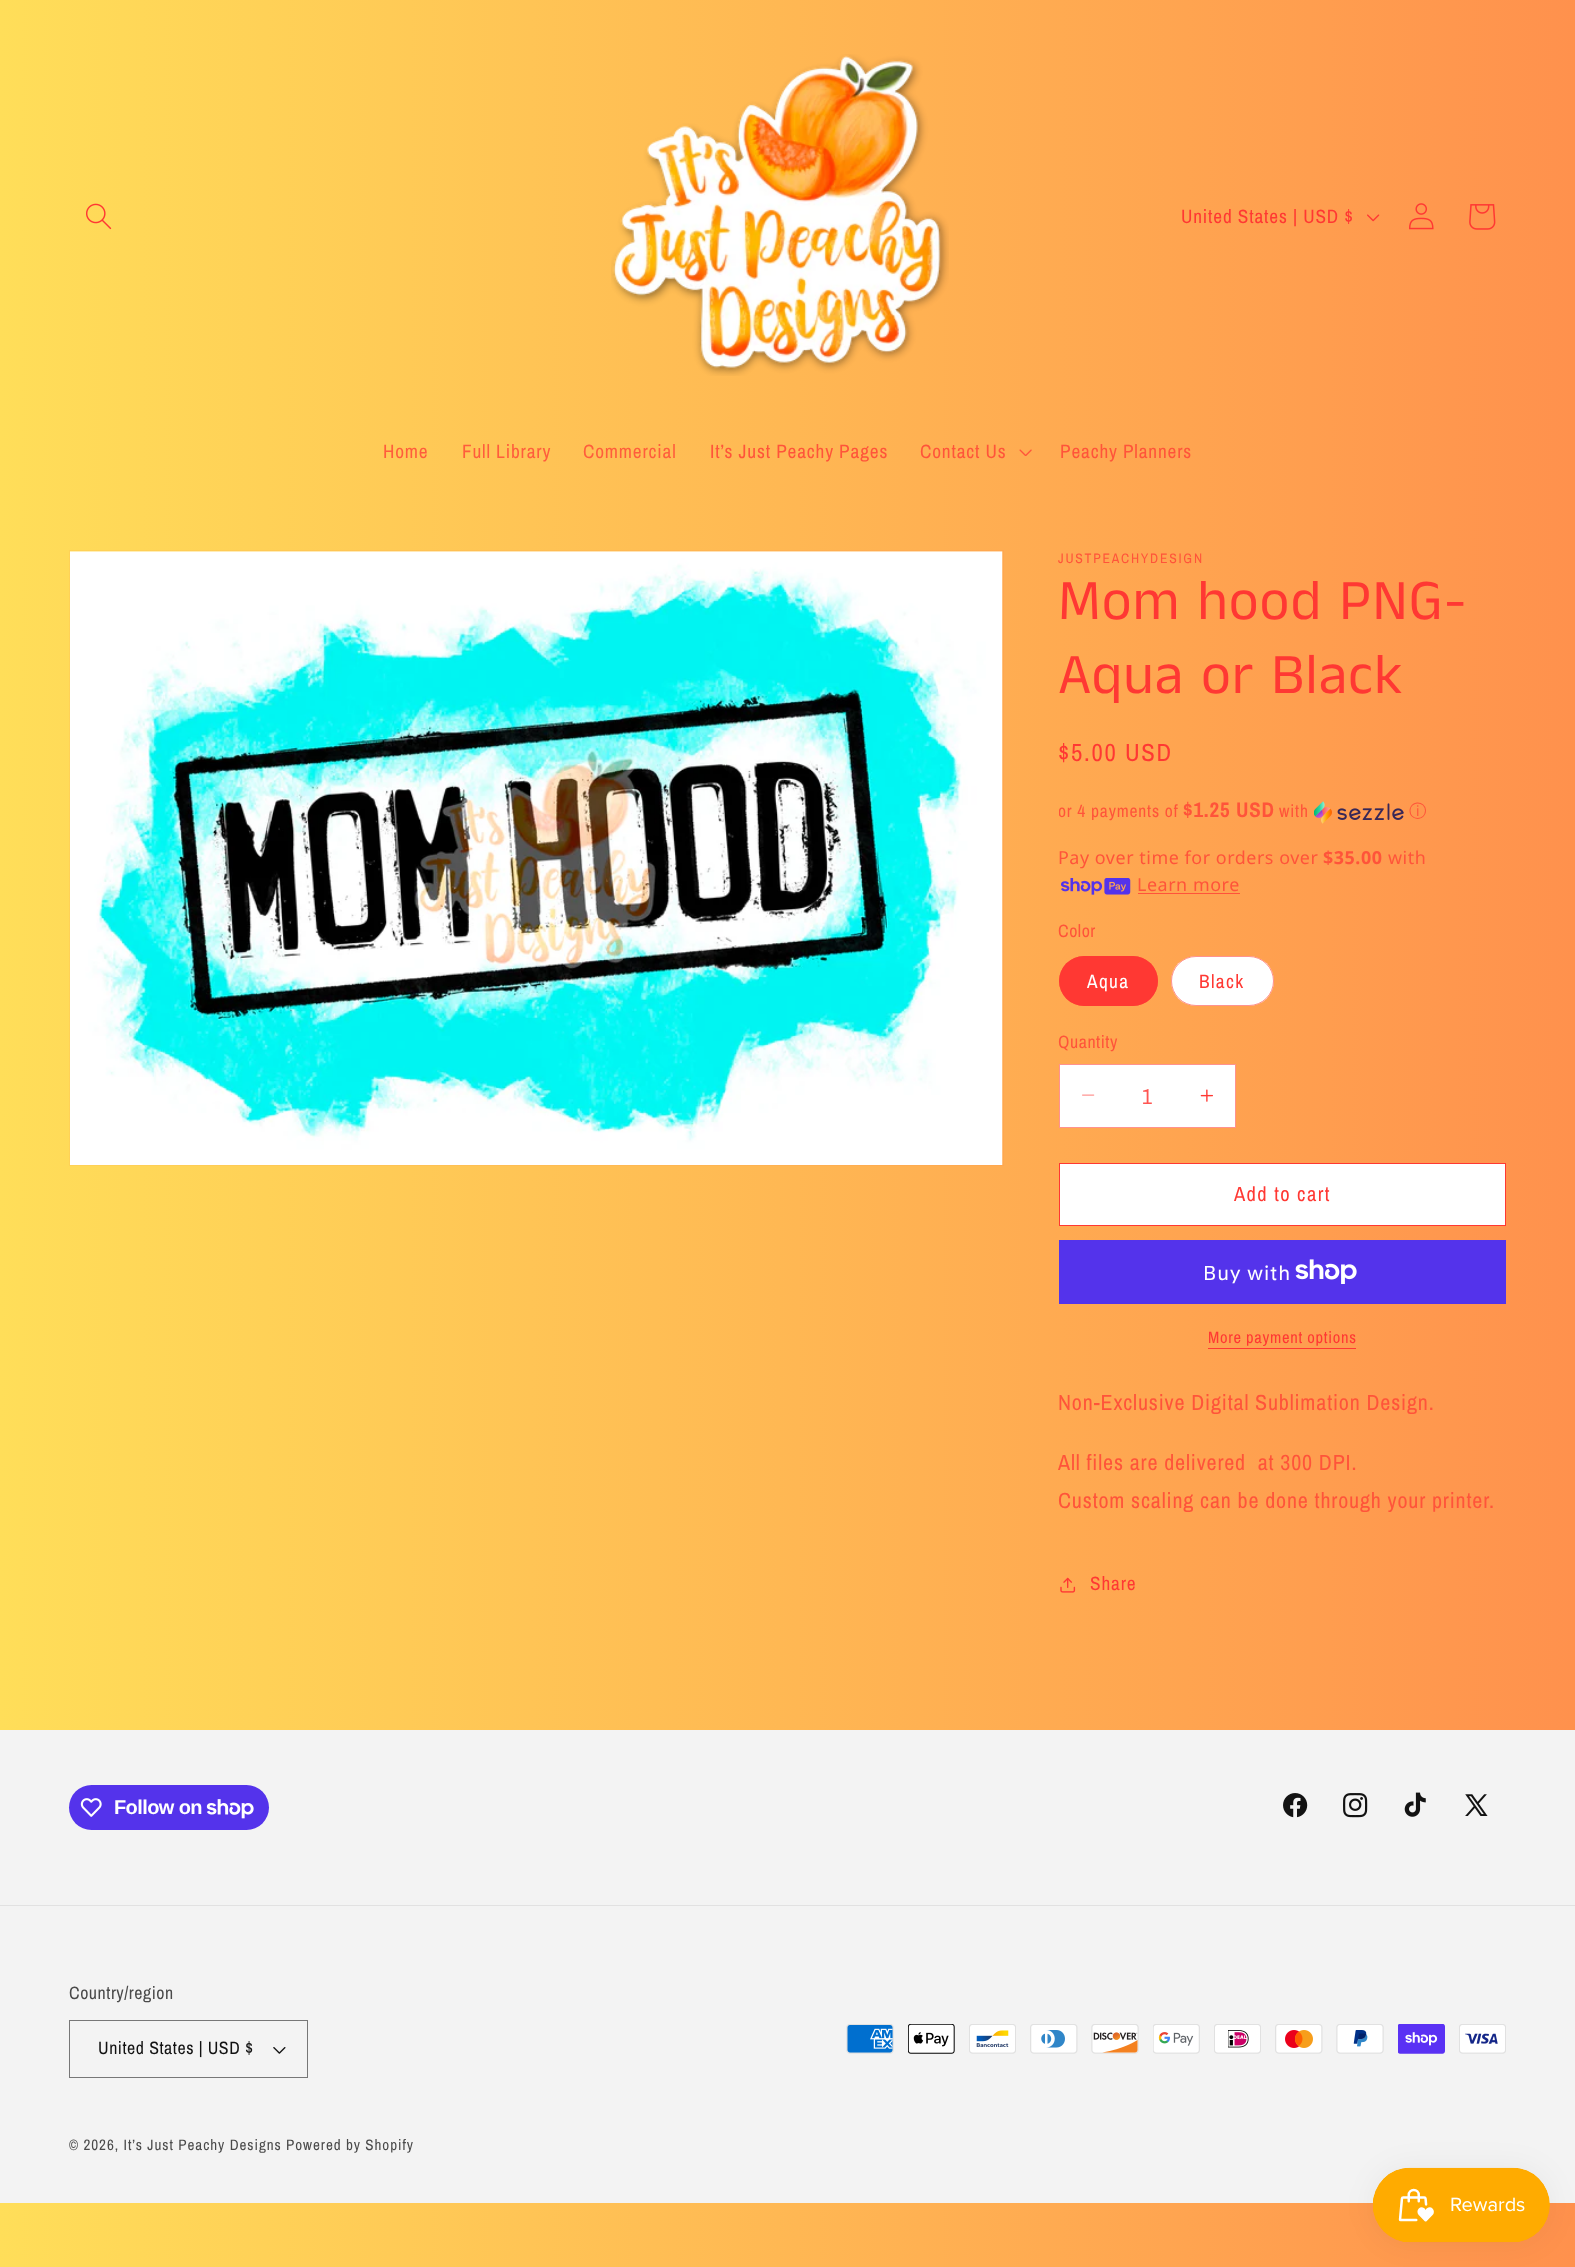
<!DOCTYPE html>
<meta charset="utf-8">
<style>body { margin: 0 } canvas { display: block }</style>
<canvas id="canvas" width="1575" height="2267"></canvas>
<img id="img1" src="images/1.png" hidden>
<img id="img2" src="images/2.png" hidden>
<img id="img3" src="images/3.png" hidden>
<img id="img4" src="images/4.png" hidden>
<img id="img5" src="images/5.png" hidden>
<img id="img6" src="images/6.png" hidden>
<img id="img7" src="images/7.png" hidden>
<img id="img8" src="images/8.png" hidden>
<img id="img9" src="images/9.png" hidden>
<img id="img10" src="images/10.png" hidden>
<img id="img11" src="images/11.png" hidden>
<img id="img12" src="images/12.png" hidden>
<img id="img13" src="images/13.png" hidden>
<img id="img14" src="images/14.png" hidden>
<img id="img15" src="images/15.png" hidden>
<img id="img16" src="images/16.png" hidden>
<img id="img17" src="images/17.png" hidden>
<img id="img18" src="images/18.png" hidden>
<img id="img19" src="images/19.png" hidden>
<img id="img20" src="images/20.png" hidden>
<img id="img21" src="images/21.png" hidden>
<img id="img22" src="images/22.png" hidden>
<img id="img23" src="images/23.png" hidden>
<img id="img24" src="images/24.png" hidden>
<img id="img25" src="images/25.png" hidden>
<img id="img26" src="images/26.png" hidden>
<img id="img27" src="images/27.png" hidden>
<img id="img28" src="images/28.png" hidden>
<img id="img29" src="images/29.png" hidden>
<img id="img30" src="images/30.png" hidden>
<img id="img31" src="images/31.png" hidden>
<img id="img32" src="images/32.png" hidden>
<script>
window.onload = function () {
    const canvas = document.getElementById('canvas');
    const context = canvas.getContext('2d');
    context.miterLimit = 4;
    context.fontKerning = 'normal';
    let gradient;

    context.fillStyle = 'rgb(255, 255, 255)';
    context.fillRect(0, 0, 1575, 2267);
    gradient = context.createLinearGradient(0, 1134, 1575, 1134);
    gradient.addColorStop(0, 'rgb(255, 222, 89)');
    gradient.addColorStop(1, 'rgb(255, 145, 77)');
    context.fillStyle = gradient;
    context.fillRect(0, 0, 1575, 2267);
    gradient = context.createLinearGradient(0, 1134, 1575, 1134);
    gradient.addColorStop(0, 'rgb(255, 98, 61)');
    gradient.addColorStop(1, 'rgb(255, 78, 58)');
    context.fillStyle = gradient;
    context.fillRect(1138, 893, 102, 1);
    context.drawImage(document.getElementById('img1'), 86, 203, 26, 27);
    context.drawImage(document.getElementById('img2'), 611, 54, 338, 322);
    context.drawImage(document.getElementById('img3'), 1367, 214, 13, 8);
    context.drawImage(document.getElementById('img4'), 1409, 203, 25, 27);
    context.drawImage(document.getElementById('img5'), 1469, 204, 27, 26);
    context.drawImage(document.getElementById('img6'), 1019, 449, 13, 7);
    context.strokeStyle = 'rgba(255, 56, 51, 0.05)';
    context.strokeRect(69.5, 550.5, 934, 615);
    context.drawImage(document.getElementById('img7'), 70, 551, 933, 614);
    context.drawImage(document.getElementById('img8'), 1314, 801, 90, 23);
    context.drawImage(document.getElementById('img9'), 1061, 878, 70, 17);
    context.fillStyle = 'rgb(255, 56, 51)';
    context.beginPath();
    context.roundRect(1059, 956, 99, 50, 25);
    context.fill();
    context.beginPath();
    context.roundRect(1059.5, 956.5, 98, 49, 24.5);
    context.strokeStyle = 'rgba(255, 56, 51, 0.55)';
    context.stroke();
    context.fillStyle = 'rgb(255, 255, 255)';
    context.beginPath();
    context.roundRect(1171, 956, 103, 50, 25);
    context.fill();
    context.beginPath();
    context.roundRect(1171.5, 956.5, 102, 49, 24.5);
    context.stroke();
    context.fillRect(1060, 1065, 175, 62);
    context.drawImage(document.getElementById('img10'), 1082, 1094, 13, 2);
    context.drawImage(document.getElementById('img11'), 1200, 1089, 13, 13);
    context.strokeStyle = 'rgb(255, 146, 143)';
    context.strokeRect(1059.5, 1064.5, 176, 63);
    context.fillRect(1060, 1164, 445, 61);
    context.strokeStyle = 'rgb(255, 56, 51)';
    context.strokeRect(1059.5, 1163.5, 446, 62);
    context.fillStyle = 'rgb(84, 51, 235)';
    context.fillRect(1059, 1240, 447, 64);
    context.drawImage(document.getElementById('img12'), 1295, 1259, 62, 25);
    context.fillStyle = 'rgb(255, 56, 51)';
    context.fillRect(1208, 1348, 148, 1);
    context.drawImage(document.getElementById('img13'), 1060, 1577, 16, 16);
    context.fillStyle = 'rgb(243, 243, 243)';
    context.fillRect(0, 1730, 1575, 473);
    context.fillStyle = 'rgb(84, 51, 235)';
    context.beginPath();
    context.roundRect(69, 1785, 200, 45, 22.5);
    context.fill();
    context.drawImage(document.getElementById('img14'), 80, 1798, 22, 19);
    context.drawImage(document.getElementById('img15'), 206, 1799, 48, 20);
    context.drawImage(document.getElementById('img16'), 1283, 1793, 25, 25);
    context.drawImage(document.getElementById('img17'), 1343, 1793, 25, 25);
    context.drawImage(document.getElementById('img18'), 1404, 1792, 22, 25);
    context.drawImage(document.getElementById('img19'), 1465, 1794, 23, 22);
    context.fillStyle = 'rgb(225, 225, 225)';
    context.fillRect(0, 1905, 1575, 1);
    context.drawImage(document.getElementById('img20'), 273, 2047, 13, 7);
    context.strokeStyle = 'rgb(119, 119, 119)';
    context.strokeRect(69.5, 2020.5, 238, 57);
    context.drawImage(document.getElementById('img21'), 846, 2024, 48, 30);
    context.drawImage(document.getElementById('img22'), 908, 2024, 47, 30);
    context.drawImage(document.getElementById('img23'), 969, 2024, 47, 30);
    context.drawImage(document.getElementById('img24'), 1030, 2024, 48, 30);
    context.drawImage(document.getElementById('img25'), 1091, 2024, 48, 30);
    context.drawImage(document.getElementById('img26'), 1153, 2024, 47, 30);
    context.drawImage(document.getElementById('img27'), 1214, 2024, 47, 30);
    context.drawImage(document.getElementById('img28'), 1275, 2024, 48, 30);
    context.drawImage(document.getElementById('img29'), 1336, 2024, 48, 30);
    context.drawImage(document.getElementById('img30'), 1398, 2024, 47, 30);
    context.drawImage(document.getElementById('img31'), 1459, 2024, 47, 30);
    context.fillStyle = 'rgba(0, 0, 0, 0.05)';
    context.filter = 'blur(15.5px)';
    context.beginPath();
    context.roundRect(1373, 2168, 177, 75, 37.5);
    context.fill();
    context.filter = 'none';
    context.drawImage(document.getElementById('img32'), 1372, 2167, 178, 76);
    context.letterSpacing = '0.85px';
    context.font = '19.25px Archivo Narrow';
    context.fillStyle = 'rgb(255, 56, 51)';
    context.fillText('United States | USD $', 1181, 223);
    context.fillStyle = 'rgb(255, 93, 60)';
    context.fillText('Home', 383, 458);
    context.fillText('Full Library', 462, 458);
    context.fillText('Commercial', 583, 458);
    context.fillStyle = 'rgb(255, 84, 58)';
    context.fillText('It’s Just Peachy Pages', 710, 458);
    context.fillText('Contact Us', 920, 458);
    context.fillText('Peachy Planners', 1060, 458);
    context.letterSpacing = '1.75px';
    context.font = '13.75px Archivo Narrow';
    context.fillText('JUSTPEACHYDESIGN', 1058, 563);
    context.letterSpacing = '0.9px';
    context.font = '57.5px Anek Tamil';
    context.fillStyle = 'rgb(255, 56, 51)';
    context.fillText('Mom hood PNG-', 1058, 619);
    context.fillText('Aqua or Black', 1058, 693);
    context.letterSpacing = '1.75px';
    context.font = '24.75px Archivo Narrow';
    context.fillText('$5.00 USD', 1058, 761);
    context.save();
    context.beginPath();
    context.rect(1059, 799, 447, 25);
    context.clip();
    context.letterSpacing = '0.85px';
    context.font = '17.5px Archivo Narrow';
    context.fillStyle = 'rgb(255, 84, 58)';
    context.fillText('or 4 payments of', 1058, 817);
    context.restore();
    context.letterSpacing = '0.85px';
    context.font = 'bold 21px Archivo Narrow';
    context.fillStyle = 'rgb(255, 84, 58)';
    context.fillText('$1.25 USD', 1183, 817);
    context.font = '17.5px Archivo Narrow';
    context.fillText('with', 1279, 817);
    context.font = '500 17.5px WenQuanYi Zen Hei';
    context.fillText('ⓘ', 1409, 817);
    context.letterSpacing = '0.55px';
    context.font = '17.9px Noto Sans';
    context.fillText('Pay over time for orders over', 1058, 864);
    context.font = 'bold 17.9px Noto Sans';
    context.fillText('$35.00', 1323, 864);
    context.font = '17.9px Noto Sans';
    context.fillText('with', 1388, 864);
    context.fillText('Learn more', 1137, 891);
    context.font = '17.9px Archivo Narrow';
    context.fillText('Color', 1058, 937);
    context.letterSpacing = '1.4px';
    context.font = '19.25px Archivo Narrow';
    context.fillStyle = 'rgb(255, 255, 255)';
    context.fillText('Aqua', 1087, 988);
    context.fillStyle = 'rgb(255, 56, 51)';
    context.fillText('Black', 1199, 988);
    context.letterSpacing = '0.55px';
    context.font = '17.9px Archivo Narrow';
    context.fillStyle = 'rgb(255, 84, 58)';
    context.fillText('Quantity', 1058, 1048);
    context.letterSpacing = '0px';
    context.font = '22px Archivo Narrow';
    context.fillStyle = 'rgb(255, 86, 82)';
    context.fillText('1', 1142, 1104);
    context.letterSpacing = '1.4px';
    context.font = '20.5px Archivo Narrow';
    context.fillStyle = 'rgb(255, 56, 51)';
    context.fillText('Add to cart', 1234, 1201);
    context.letterSpacing = '0.85px';
    context.font = '20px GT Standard';
    context.fillStyle = 'rgb(255, 255, 255)';
    context.fillText('Buy with', 1203, 1280);
    context.letterSpacing = '0.7px';
    context.font = '16.5px Archivo Narrow';
    context.fillStyle = 'rgb(255, 56, 51)';
    context.fillText('More payment options', 1208, 1343);
    context.letterSpacing = '0.85px';
    context.font = '22px Archivo Narrow';
    context.fillStyle = 'rgb(255, 84, 58)';
    context.fillText('Non-Exclusive Digital', 1058, 1410);
    context.fillText('Sublimation Design.', 1255, 1410);
    context.fillText('All files are delivered  at 300 DPI.', 1058, 1470);
    context.fillText('Custom scaling can be done through your printer.', 1058, 1508);
    context.font = '19.25px Archivo Narrow';
    context.fillStyle = 'rgb(255, 56, 51)';
    context.fillText('Share', 1090, 1590);
    context.letterSpacing = '-0.6px';
    context.font = 'bold 20px Liberation Sans';
    context.fillStyle = 'rgb(255, 255, 255)';
    context.fillText('Follow on', 114, 1814);
    context.letterSpacing = '0.55px';
    context.font = '17.9px Archivo Narrow';
    context.fillStyle = 'rgb(74, 74, 74)';
    context.fillText('Country/region', 69, 1999);
    context.fillStyle = 'rgb(18, 18, 18)';
    context.fillText('United States | USD $', 98, 2054);
    context.letterSpacing = '0.95px';
    context.font = '15.1px Archivo Narrow';
    context.fillStyle = 'rgb(74, 74, 74)';
    context.fillText('© 2026, It’s Just Peachy Designs Powered by Shopify', 69, 2150);
};
</script>
